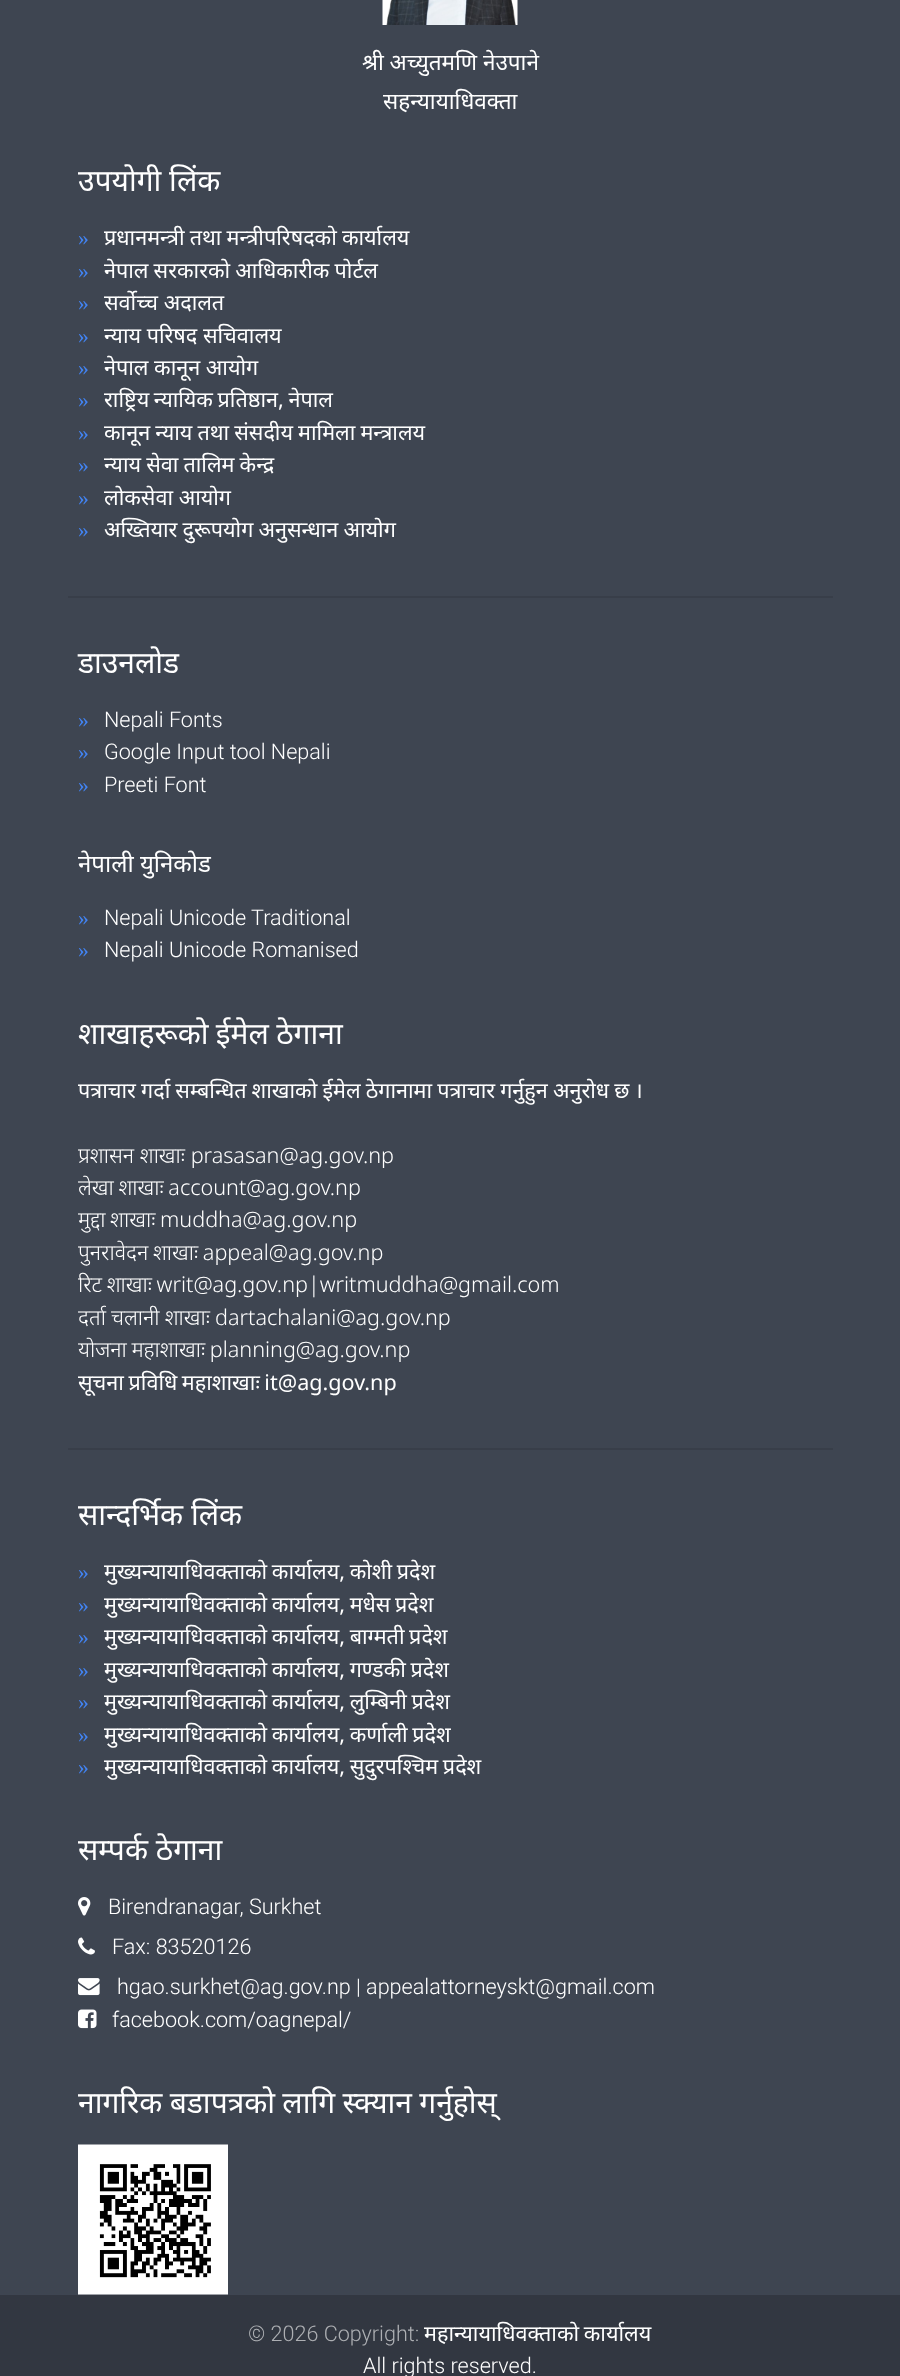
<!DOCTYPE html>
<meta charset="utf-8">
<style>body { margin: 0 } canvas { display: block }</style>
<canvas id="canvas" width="900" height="2376"></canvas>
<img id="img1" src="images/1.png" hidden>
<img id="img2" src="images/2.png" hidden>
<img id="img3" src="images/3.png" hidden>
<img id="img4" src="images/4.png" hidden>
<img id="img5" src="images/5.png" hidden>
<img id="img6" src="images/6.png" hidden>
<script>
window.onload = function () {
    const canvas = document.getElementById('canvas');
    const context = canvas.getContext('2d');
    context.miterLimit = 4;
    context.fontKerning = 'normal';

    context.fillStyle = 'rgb(62, 69, 81)';
    context.fillRect(0, 0, 900, 2376);
    context.drawImage(document.getElementById('img1'), 382, 0, 136, 25);
    context.fillStyle = 'rgb(56, 62, 73)';
    context.fillRect(68, 596, 765, 2);
    context.fillRect(68, 1448, 765, 2);
    context.drawImage(document.getElementById('img2'), 78, 1897, 13, 19);
    context.drawImage(document.getElementById('img3'), 78, 1937, 17, 18);
    context.drawImage(document.getElementById('img4'), 78, 1978, 22, 18);
    context.drawImage(document.getElementById('img5'), 78, 2009, 19, 20);
    context.drawImage(document.getElementById('img6'), 78, 2144, 150, 151);
    context.fillStyle = 'rgb(50, 55, 65)';
    context.fillRect(0, 2295, 900, 81);
    context.font = '22.5px Noto Sans';
    context.fillStyle = 'rgb(255, 255, 255)';
    context.fillText('श्री अच्युतमणि नेउपाने', 362, 70);
    context.fillText('सहन्यायाधिवक्ता', 383, 109);
    context.font = '30px Noto Sans';
    context.fillText('उपयोगी लिंक', 78, 191);
    context.font = '21.6px Liberation Serif';
    context.fillStyle = 'rgb(66, 132, 244)';
    context.fillText('»', 78, 245);
    context.wordSpacing = '-0.5px';
    context.font = '21.6px Noto Sans';
    context.fillStyle = 'rgb(255, 255, 255)';
    context.fillText('प्रधानमन्त्री तथा मन्त्रीपरिषदको कार्यालय', 104, 245);
    context.wordSpacing = '0px';
    context.font = '21.6px Liberation Serif';
    context.fillStyle = 'rgb(66, 132, 244)';
    context.fillText('»', 78, 278);
    context.wordSpacing = '-0.5px';
    context.font = '21.6px Noto Sans';
    context.fillStyle = 'rgb(255, 255, 255)';
    context.fillText('नेपाल सरकारको आधिकारीक पोर्टल', 104, 278);
    context.wordSpacing = '0px';
    context.font = '21.6px Liberation Serif';
    context.fillStyle = 'rgb(66, 132, 244)';
    context.fillText('»', 78, 310);
    context.font = '21.6px Noto Sans';
    context.fillStyle = 'rgb(255, 255, 255)';
    context.fillText('सर्वोच्च अदालत', 104, 310);
    context.font = '21.6px Liberation Serif';
    context.fillStyle = 'rgb(66, 132, 244)';
    context.fillText('»', 78, 343);
    context.font = '21.6px Noto Sans';
    context.fillStyle = 'rgb(255, 255, 255)';
    context.fillText('न्याय परिषद सचिवालय', 104, 343);
    context.font = '21.6px Liberation Serif';
    context.fillStyle = 'rgb(66, 132, 244)';
    context.fillText('»', 78, 375);
    context.font = '21.6px Noto Sans';
    context.fillStyle = 'rgb(255, 255, 255)';
    context.fillText('नेपाल कानून आयोग', 104, 375);
    context.font = '21.6px Liberation Serif';
    context.fillStyle = 'rgb(66, 132, 244)';
    context.fillText('»', 78, 407);
    context.wordSpacing = '-1px';
    context.font = '21.6px Noto Sans';
    context.fillStyle = 'rgb(255, 255, 255)';
    context.fillText('राष्ट्रिय न्यायिक प्रतिष्ठान, नेपाल', 104, 407);
    context.wordSpacing = '0px';
    context.font = '21.6px Liberation Serif';
    context.fillStyle = 'rgb(66, 132, 244)';
    context.fillText('»', 78, 440);
    context.wordSpacing = '-0.5px';
    context.font = '21.6px Noto Sans';
    context.fillStyle = 'rgb(255, 255, 255)';
    context.fillText('कानून न्याय तथा संसदीय मामिला मन्त्रालय', 104, 440);
    context.wordSpacing = '0px';
    context.font = '21.6px Liberation Serif';
    context.fillStyle = 'rgb(66, 132, 244)';
    context.fillText('»', 78, 472);
    context.wordSpacing = '-0.5px';
    context.font = '21.6px Noto Sans';
    context.fillStyle = 'rgb(255, 255, 255)';
    context.fillText('न्याय सेवा तालिम केन्द्र', 104, 472);
    context.wordSpacing = '0px';
    context.font = '21.6px Liberation Serif';
    context.fillStyle = 'rgb(66, 132, 244)';
    context.fillText('»', 78, 505);
    context.font = '21.6px Noto Sans';
    context.fillStyle = 'rgb(255, 255, 255)';
    context.fillText('लोकसेवा आयोग', 104, 505);
    context.font = '21.6px Liberation Serif';
    context.fillStyle = 'rgb(66, 132, 244)';
    context.fillText('»', 78, 537);
    context.wordSpacing = '-0.5px';
    context.font = '21.6px Noto Sans';
    context.fillStyle = 'rgb(255, 255, 255)';
    context.fillText('अख्तियार दुरूपयोग अनुसन्धान आयोग', 104, 537);
    context.wordSpacing = '0px';
    context.font = '30px Noto Sans';
    context.fillText('डाउनलोड', 78, 673);
    context.font = '21.6px Liberation Serif';
    context.fillStyle = 'rgb(66, 132, 244)';
    context.fillText('»', 78, 727);
    context.font = '300 21.6px Roboto';
    context.fillStyle = 'rgb(255, 255, 255)';
    context.fillText('Nepali Fonts', 104, 727);
    context.font = '21.6px Liberation Serif';
    context.fillStyle = 'rgb(66, 132, 244)';
    context.fillText('»', 78, 759);
    context.font = '300 21.6px Roboto';
    context.fillStyle = 'rgb(255, 255, 255)';
    context.fillText('Google Input tool Nepali', 104, 759);
    context.font = '21.6px Liberation Serif';
    context.fillStyle = 'rgb(66, 132, 244)';
    context.fillText('»', 78, 792);
    context.font = '300 21.6px Roboto';
    context.fillStyle = 'rgb(255, 255, 255)';
    context.fillText('Preeti Font', 104, 792);
    context.font = '24px Noto Sans';
    context.fillText('नेपाली युनिकोड', 78, 872);
    context.font = '21.6px Liberation Serif';
    context.fillStyle = 'rgb(66, 132, 244)';
    context.fillText('»', 78, 925);
    context.font = '300 21.6px Roboto';
    context.fillStyle = 'rgb(255, 255, 255)';
    context.fillText('Nepali Unicode Traditional', 104, 925);
    context.font = '21.6px Liberation Serif';
    context.fillStyle = 'rgb(66, 132, 244)';
    context.fillText('»', 78, 957);
    context.font = '300 21.6px Roboto';
    context.fillStyle = 'rgb(255, 255, 255)';
    context.fillText('Nepali Unicode Romanised', 104, 957);
    context.wordSpacing = '-0.5px';
    context.font = '30px Noto Sans';
    context.fillText('शाखाहरूको ईमेल ठेगाना', 78, 1044);
    context.font = '21.6px Noto Sans';
    context.fillText('पत्राचार गर्दा सम्बन्धित शाखाको ईमेल ठेगानामा पत्राचार गर्नुहुन अनुरोध छ ।', 78, 1098);
    context.wordSpacing = '0px';
    context.font = '300 21.6px Noto Sans';
    context.fillText('प्रशासन शाखाः prasasan@ag.gov.np', 78, 1163);
    context.wordSpacing = '-1px';
    context.fillText('लेखा शाखाः account@ag.gov.np', 78, 1195);
    context.fillText('मुद्दा शाखाः muddha@ag.gov.np', 78, 1227);
    context.fillText('पुनरावेदन शाखाः appeal@ag.gov.np', 78, 1260);
    context.fillText('रिट शाखाः writ@ag.gov.np|writmuddha@gmail.com', 78, 1292);
    context.wordSpacing = '-0.5px';
    context.fillText('दर्ता चलानी शाखाः dartachalani@ag.gov.np', 78, 1325);
    context.wordSpacing = '-1px';
    context.fillText('योजना महाशाखाः planning@ag.gov.np', 78, 1357);
    context.font = '21.6px Noto Sans';
    context.fillText('सूचना प्रविधि महाशाखाः it@ag.gov.np', 78, 1390);
    context.wordSpacing = '0px';
    context.font = '30px Noto Sans';
    context.fillText('सान्दर्भिक लिंक', 78, 1525);
    context.font = '21.6px Liberation Serif';
    context.fillStyle = 'rgb(66, 132, 244)';
    context.fillText('»', 78, 1579);
    context.wordSpacing = '-1px';
    context.font = '21.6px Noto Sans';
    context.fillStyle = 'rgb(255, 255, 255)';
    context.fillText('मुख्यन्यायाधिवक्ताको कार्यालय, कोशी प्रदेश', 104, 1579);
    context.wordSpacing = '0px';
    context.font = '21.6px Liberation Serif';
    context.fillStyle = 'rgb(66, 132, 244)';
    context.fillText('»', 78, 1612);
    context.wordSpacing = '-1px';
    context.font = '21.6px Noto Sans';
    context.fillStyle = 'rgb(255, 255, 255)';
    context.fillText('मुख्यन्यायाधिवक्ताको कार्यालय, मधेस प्रदेश', 104, 1612);
    context.wordSpacing = '0px';
    context.font = '21.6px Liberation Serif';
    context.fillStyle = 'rgb(66, 132, 244)';
    context.fillText('»', 78, 1644);
    context.wordSpacing = '-1px';
    context.font = '21.6px Noto Sans';
    context.fillStyle = 'rgb(255, 255, 255)';
    context.fillText('मुख्यन्यायाधिवक्ताको कार्यालय, बाग्मती प्रदेश', 104, 1644);
    context.wordSpacing = '0px';
    context.font = '21.6px Liberation Serif';
    context.fillStyle = 'rgb(66, 132, 244)';
    context.fillText('»', 78, 1677);
    context.wordSpacing = '-1px';
    context.font = '21.6px Noto Sans';
    context.fillStyle = 'rgb(255, 255, 255)';
    context.fillText('मुख्यन्यायाधिवक्ताको कार्यालय, गण्डकी प्रदेश', 104, 1677);
    context.wordSpacing = '0px';
    context.font = '21.6px Liberation Serif';
    context.fillStyle = 'rgb(66, 132, 244)';
    context.fillText('»', 78, 1709);
    context.wordSpacing = '-1px';
    context.font = '21.6px Noto Sans';
    context.fillStyle = 'rgb(255, 255, 255)';
    context.fillText('मुख्यन्यायाधिवक्ताको कार्यालय, लुम्बिनी प्रदेश', 104, 1709);
    context.wordSpacing = '0px';
    context.font = '21.6px Liberation Serif';
    context.fillStyle = 'rgb(66, 132, 244)';
    context.fillText('»', 78, 1742);
    context.wordSpacing = '-1px';
    context.font = '21.6px Noto Sans';
    context.fillStyle = 'rgb(255, 255, 255)';
    context.fillText('मुख्यन्यायाधिवक्ताको कार्यालय, कर्णाली प्रदेश', 104, 1742);
    context.wordSpacing = '0px';
    context.font = '21.6px Liberation Serif';
    context.fillStyle = 'rgb(66, 132, 244)';
    context.fillText('»', 78, 1774);
    context.wordSpacing = '-1px';
    context.font = '21.6px Noto Sans';
    context.fillStyle = 'rgb(255, 255, 255)';
    context.fillText('मुख्यन्यायाधिवक्ताको कार्यालय, सुदुरपश्चिम प्रदेश', 104, 1774);
    context.wordSpacing = '0px';
    context.font = '30px Noto Sans';
    context.fillText('सम्पर्क ठेगाना', 78, 1860);
    context.font = '300 21.6px Roboto';
    context.fillText('Birendranagar, Surkhet', 108, 1914);
    context.fillText('Fax: 83520126', 112, 1954);
    context.fillText('hgao.surkhet@ag.gov.np | appealattorneyskt@gmail.com', 117, 1994);
    context.fillText('facebook.com/oagnepal/', 112, 2027);
    context.wordSpacing = '-0.5px';
    context.font = '30px Noto Sans';
    context.fillText('नागरिक बडापत्रको लागि स्क्यान गर्नुहोस्', 78, 2113);
    context.wordSpacing = '0px';
    context.font = '300 21.6px Roboto';
    context.fillStyle = 'rgb(173, 175, 179)';
    context.fillText('© 2026 Copyright:', 248, 2341);
    context.wordSpacing = '-1px';
    context.font = '21.6px Noto Sans';
    context.fillStyle = 'rgb(255, 255, 255)';
    context.fillText('महान्यायाधिवक्ताको कार्यालय', 424, 2341);
    context.wordSpacing = '0px';
    context.font = '300 21.6px Roboto';
    context.fillText('All rights reserved.', 363, 2373);
};
</script>
